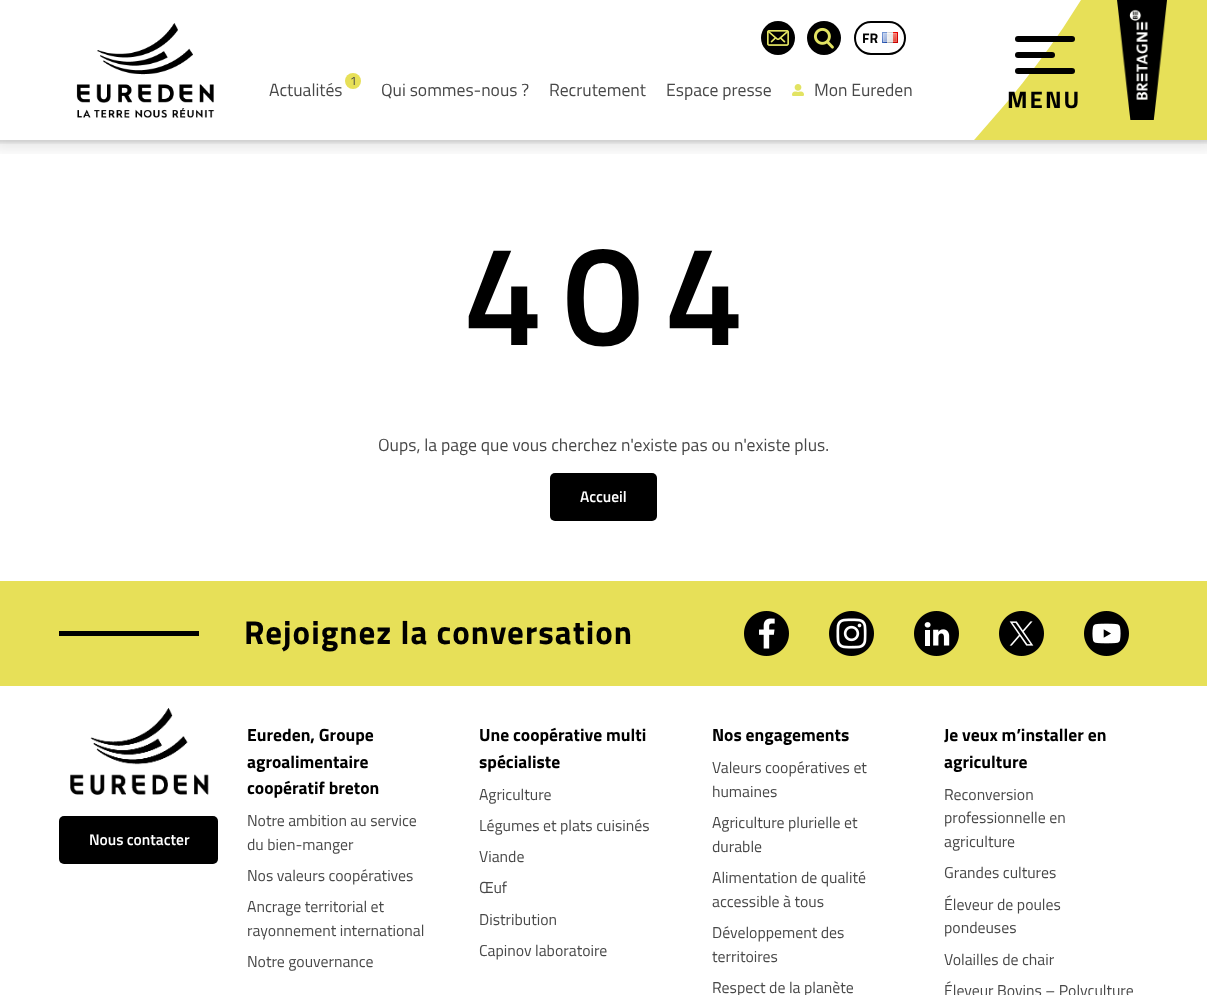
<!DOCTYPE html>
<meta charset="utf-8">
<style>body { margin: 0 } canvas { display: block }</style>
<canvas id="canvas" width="1207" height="995"></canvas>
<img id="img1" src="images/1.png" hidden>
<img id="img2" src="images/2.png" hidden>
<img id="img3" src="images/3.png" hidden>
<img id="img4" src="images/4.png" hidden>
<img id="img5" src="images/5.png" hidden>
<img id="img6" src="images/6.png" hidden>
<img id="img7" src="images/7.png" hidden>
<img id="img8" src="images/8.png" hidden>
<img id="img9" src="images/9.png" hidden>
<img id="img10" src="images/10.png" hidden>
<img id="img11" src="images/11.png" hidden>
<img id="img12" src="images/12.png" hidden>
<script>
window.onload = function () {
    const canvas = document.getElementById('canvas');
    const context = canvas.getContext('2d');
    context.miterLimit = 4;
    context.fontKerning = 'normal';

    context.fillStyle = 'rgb(255, 255, 255)';
    context.fillRect(0, 0, 1207, 995);
    context.save();
    context.beginPath();
    context.rect(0, 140, 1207, 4);
    context.clip();
    context.fillStyle = 'rgba(0, 0, 0, 0.1)';
    context.filter = 'blur(1.5px)';
    context.beginPath();
    context.rect(-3, -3, 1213, 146);
    context.fill();
    context.filter = 'none';
    context.restore();
    context.save();
    context.beginPath();
    context.rect(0, 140, 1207, 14);
    context.clip();
    context.fillStyle = 'rgba(0, 0, 0, 0.1)';
    context.filter = 'blur(7.5px)';
    context.beginPath();
    context.rect(-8, -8, 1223, 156);
    context.fill();
    context.filter = 'none';
    context.restore();
    context.fillStyle = 'rgb(231, 224, 88)';
    context.beginPath();
    context.moveTo(1207, 140);
    context.lineTo(974, 140);
    context.lineTo(975, 139);
    context.lineTo(1008, 101);
    context.bezierCurveTo(1027, 78, 1046, 53, 1063, 28);
    context.lineTo(1081, 0);
    context.lineTo(1207, 0);
    context.fill();
    context.drawImage(document.getElementById('img1'), 76, 23, 139, 95);
    context.fillStyle = 'rgb(0, 0, 0)';
    context.beginPath();
    context.arc(778, 38, 17, 0, 2 * Math.PI);
    context.fill();
    context.drawImage(document.getElementById('img2'), 767, 30, 22, 16);
    context.beginPath();
    context.arc(824, 38, 17, 0, 2 * Math.PI);
    context.fill();
    context.drawImage(document.getElementById('img3'), 813, 27, 21, 22);
    context.beginPath();
    context.roundRect(855, 22, 50, 32, 16);
    context.strokeStyle = 'rgb(0, 0, 0)';
    context.lineWidth = 2;
    context.stroke();
    context.drawImage(document.getElementById('img4'), 882, 32, 16, 11);
    context.fillStyle = 'rgb(231, 224, 88)';
    context.beginPath();
    context.arc(353, 81, 8, 0, 2 * Math.PI);
    context.fill();
    context.drawImage(document.getElementById('img5'), 792, 84, 12, 12);
    context.fillStyle = 'rgb(0, 0, 0)';
    context.beginPath();
    context.roundRect(1015, 36, 60, 6, 3);
    context.fill();
    context.beginPath();
    context.roundRect(1015, 52, 40, 6, 3);
    context.fill();
    context.beginPath();
    context.roundRect(1015, 68, 60, 6, 3);
    context.fill();
    context.drawImage(document.getElementById('img6'), 1117, 0, 50, 120);
    context.beginPath();
    context.roundRect(550, 473, 107, 48, 5);
    context.fill();
    context.fillStyle = 'rgb(231, 224, 88)';
    context.fillRect(0, 581, 1207, 105);
    context.fillStyle = 'rgb(0, 0, 0)';
    context.fillRect(59, 631, 140, 5);
    context.drawImage(document.getElementById('img7'), 744, 611, 45, 45);
    context.drawImage(document.getElementById('img8'), 829, 611, 45, 45);
    context.drawImage(document.getElementById('img9'), 914, 611, 45, 45);
    context.drawImage(document.getElementById('img10'), 999, 611, 45, 45);
    context.drawImage(document.getElementById('img11'), 1084, 611, 45, 45);
    context.drawImage(document.getElementById('img12'), 70, 708, 139, 87);
    context.beginPath();
    context.roundRect(59, 816, 159, 48, 5);
    context.fill();
    context.font = 'bold 14px Titillium Web';
    context.fillText('FR', 862, 43);
    context.font = '12px Titillium Web';
    context.fillStyle = 'rgb(72, 72, 72)';
    context.fillText('1', 350, 85);
    context.font = '17.6px Titillium Web';
    context.fillText('Actualités', 269, 96);
    context.fillText('Qui sommes-nous ?', 381, 96);
    context.fillText('Recrutement', 549, 96);
    context.fillText('Espace presse', 666, 96);
    context.fillText('Mon Eureden', 814, 96);
    context.letterSpacing = '2px';
    context.font = 'bold 24px Titillium Web';
    context.fillStyle = 'rgb(0, 0, 0)';
    context.fillText('MENU', 1007, 108);
    context.letterSpacing = '0px';
    context.font = '600 143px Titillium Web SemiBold';
    context.fillText('4', 463, 345);
    context.fillText('0', 563, 345);
    context.fillText('4', 664, 345);
    context.font = '17.6px Titillium Web';
    context.fillStyle = 'rgb(72, 72, 72)';
    context.fillText('Oups, la page que vous cherchez n\'existe pas ou n\'existe plus.', 378, 451);
    context.font = '600 15.5px Titillium Web SemiBold';
    context.fillStyle = 'rgb(255, 255, 255)';
    context.fillText('Accueil', 580, 502);
    context.letterSpacing = '1px';
    context.font = 'bold 33px Titillium Web';
    context.fillStyle = 'rgb(0, 0, 0)';
    context.fillText('Rejoignez la conversation', 244, 644);
    context.letterSpacing = '0px';
    context.font = '600 15.5px Titillium Web SemiBold';
    context.fillStyle = 'rgb(255, 255, 255)';
    context.fillText('Nous contacter', 89, 845);
    context.font = 'bold 17.6px Titillium Web';
    context.fillStyle = 'rgb(0, 0, 0)';
    context.fillText('Eureden, Groupe', 247, 741);
    context.fillText('agroalimentaire', 247, 768);
    context.fillText('coopératif breton', 247, 794);
    context.font = '15.8px Titillium Web';
    context.fillStyle = 'rgb(72, 72, 72)';
    context.fillText('Notre ambition au service', 247, 826);
    context.fillText('du bien-manger', 247, 850);
    context.fillText('Nos valeurs coopératives', 247, 881);
    context.fillText('Ancrage territorial et', 247, 912);
    context.fillText('rayonnement international', 247, 936);
    context.fillText('Notre gouvernance', 247, 967);
    context.font = 'bold 17.6px Titillium Web';
    context.fillStyle = 'rgb(0, 0, 0)';
    context.fillText('Une coopérative multi', 479, 741);
    context.fillText('spécialiste', 479, 768);
    context.font = '15.8px Titillium Web';
    context.fillStyle = 'rgb(72, 72, 72)';
    context.fillText('Agriculture', 479, 800);
    context.fillText('Légumes et plats cuisinés', 479, 831);
    context.fillText('Viande', 479, 862);
    context.fillText('Œuf', 479, 893);
    context.fillText('Distribution', 479, 925);
    context.fillText('Capinov laboratoire', 479, 956);
    context.font = 'bold 17.6px Titillium Web';
    context.fillStyle = 'rgb(0, 0, 0)';
    context.fillText('Nos engagements', 712, 741);
    context.font = '15.8px Titillium Web';
    context.fillStyle = 'rgb(72, 72, 72)';
    context.fillText('Valeurs coopératives et', 712, 773);
    context.fillText('humaines', 712, 797);
    context.fillText('Agriculture plurielle et', 712, 828);
    context.fillText('durable', 712, 852);
    context.fillText('Alimentation de qualité', 712, 883);
    context.fillText('accessible à tous', 712, 907);
    context.fillText('Développement des', 712, 938);
    context.fillText('territoires', 712, 962);
    context.fillText('Respect de la planète', 712, 993);
    context.font = 'bold 17.6px Titillium Web';
    context.fillStyle = 'rgb(0, 0, 0)';
    context.fillText('Je veux m’installer en', 944, 741);
    context.fillText('agriculture', 944, 768);
    context.font = '15.8px Titillium Web';
    context.fillStyle = 'rgb(72, 72, 72)';
    context.fillText('Reconversion', 944, 800);
    context.fillText('professionnelle en', 944, 823);
    context.fillText('agriculture', 944, 847);
    context.fillText('Grandes cultures', 944, 878);
    context.fillText('Éleveur de poules', 944, 910);
    context.fillText('pondeuses', 944, 933);
    context.fillText('Volailles de chair', 944, 965);
    context.fillText('Éleveur Bovins – Polyculture', 944, 996);
};
</script>
